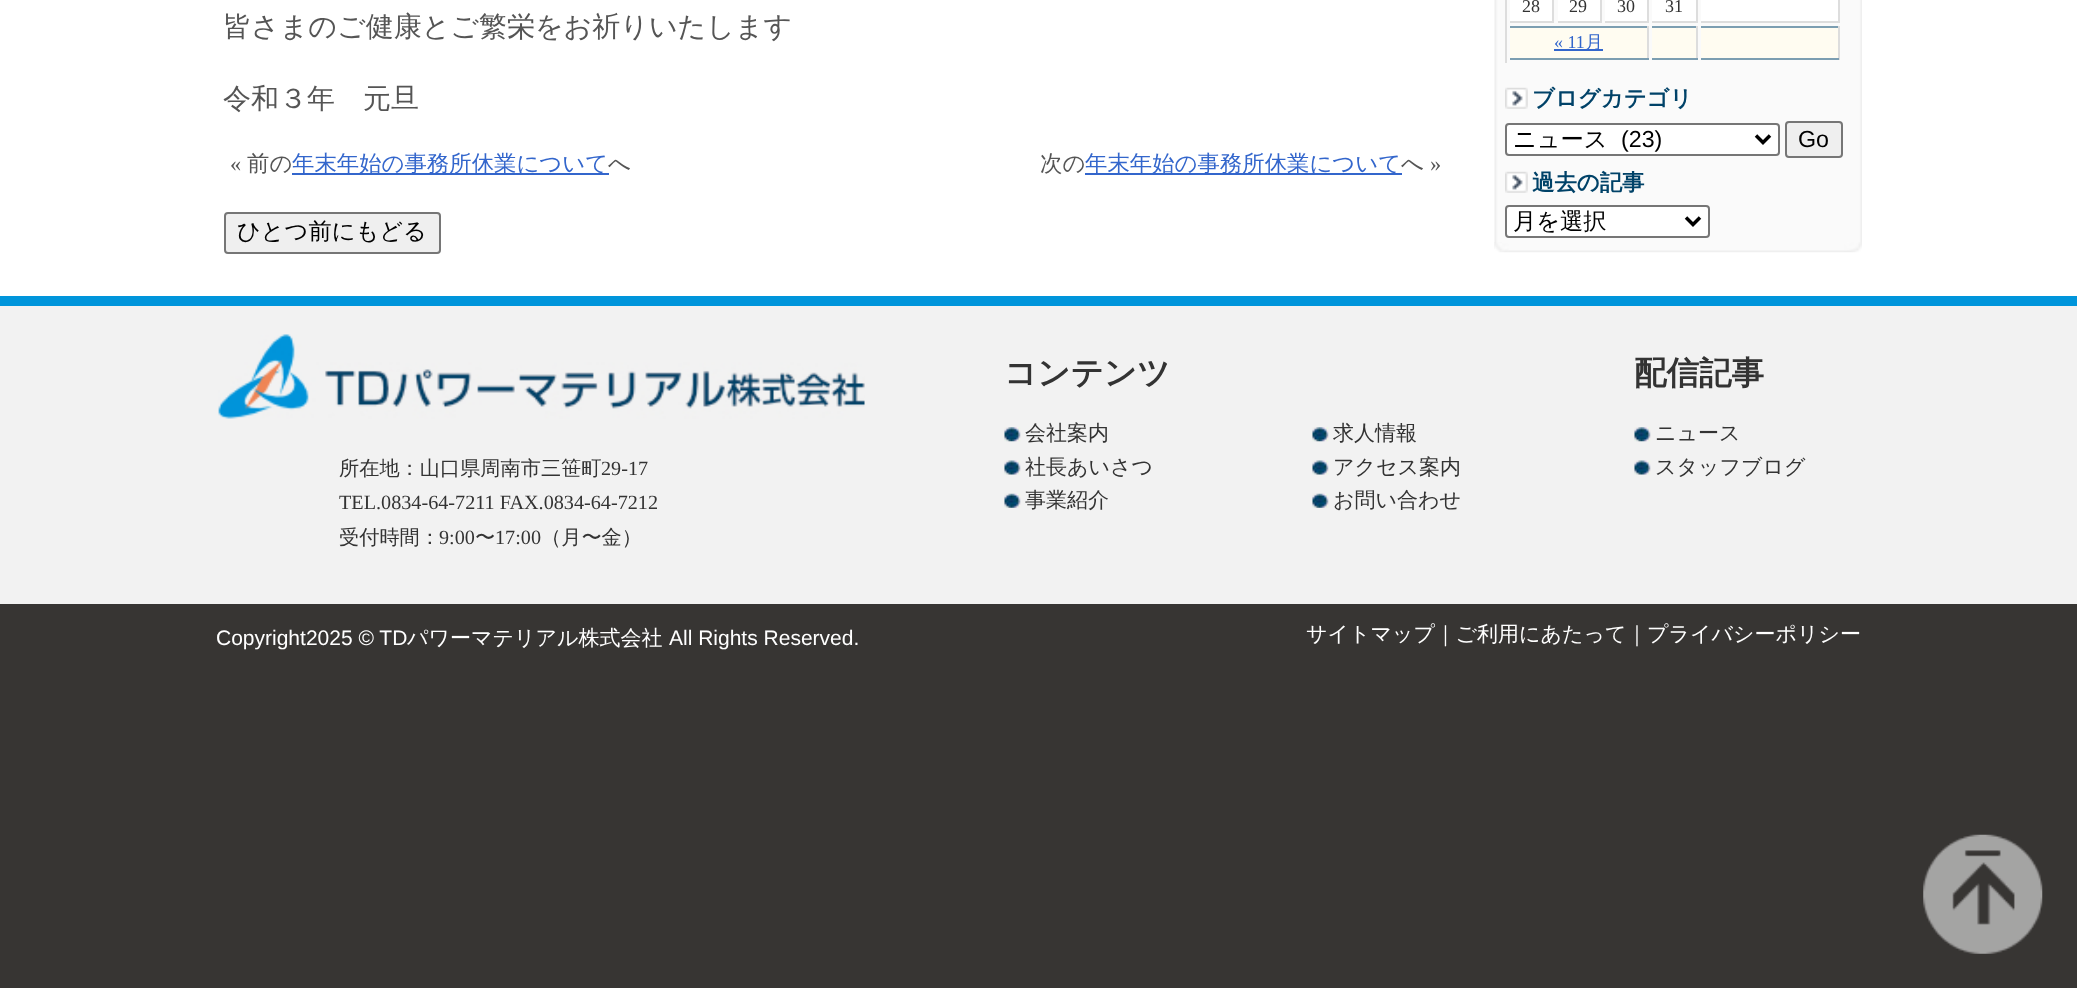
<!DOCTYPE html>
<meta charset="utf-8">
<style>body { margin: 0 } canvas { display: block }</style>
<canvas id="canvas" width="2077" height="988"></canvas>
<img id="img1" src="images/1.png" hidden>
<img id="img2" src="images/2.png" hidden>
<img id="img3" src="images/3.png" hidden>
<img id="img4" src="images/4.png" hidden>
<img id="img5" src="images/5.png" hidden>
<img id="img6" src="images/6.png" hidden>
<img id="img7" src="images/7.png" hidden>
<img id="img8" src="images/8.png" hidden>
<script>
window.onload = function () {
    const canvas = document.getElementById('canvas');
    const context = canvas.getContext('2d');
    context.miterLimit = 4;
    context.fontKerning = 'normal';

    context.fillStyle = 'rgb(255, 255, 255)';
    context.fillRect(0, 0, 2077, 988);
    context.fillStyle = 'rgb(51, 102, 204)';
    context.fillRect(292, 173, 317, 2);
    context.fillRect(1085, 173, 317, 2);
    context.fillStyle = 'rgb(239, 239, 239)';
    context.beginPath();
    context.roundRect(225, 213, 215, 40, 3);
    context.fill();
    context.strokeStyle = 'rgb(118, 118, 118)';
    context.lineWidth = 2;
    context.stroke();
    context.drawImage(document.getElementById('img1'), 1494, 0, 368, 249);
    context.fillStyle = 'rgb(221, 221, 221)';
    context.fillRect(1505, 0, 2, 63);
    context.fillStyle = 'rgb(255, 255, 255)';
    context.fillRect(1510, 0, 42, 21);
    context.fillStyle = 'rgb(221, 221, 221)';
    context.fillRect(1552, 0, 2, 23);
    context.fillRect(1510, 21, 44, 2);
    context.fillStyle = 'rgb(255, 255, 255)';
    context.fillRect(1558, 0, 42, 21);
    context.fillStyle = 'rgb(221, 221, 221)';
    context.fillRect(1600, 0, 2, 23);
    context.fillRect(1558, 21, 43, 2);
    context.fillStyle = 'rgb(255, 255, 255)';
    context.fillRect(1605, 0, 42, 21);
    context.fillStyle = 'rgb(221, 221, 221)';
    context.fillRect(1647, 0, 2, 23);
    context.fillRect(1605, 21, 44, 2);
    context.fillStyle = 'rgb(255, 255, 255)';
    context.fillRect(1652, 0, 44, 21);
    context.fillStyle = 'rgb(221, 221, 221)';
    context.fillRect(1696, 0, 2, 23);
    context.fillRect(1652, 21, 46, 2);
    context.fillStyle = 'rgb(255, 255, 255)';
    context.fillRect(1701, 0, 137, 21);
    context.fillStyle = 'rgb(221, 221, 221)';
    context.fillRect(1838, 0, 2, 23);
    context.fillRect(1701, 21, 138, 2);
    context.fillStyle = 'rgb(255, 252, 241)';
    context.fillRect(1510, 28, 137, 30);
    context.fillStyle = 'rgb(124, 158, 177)';
    context.fillRect(1510, 26, 139, 2);
    context.fillStyle = 'rgb(221, 221, 221)';
    context.fillRect(1647, 26, 2, 34);
    context.fillStyle = 'rgb(124, 158, 177)';
    context.fillRect(1510, 58, 139, 2);
    context.fillStyle = 'rgb(51, 102, 204)';
    context.fillRect(1554, 49, 49, 2);
    context.fillStyle = 'rgb(255, 252, 241)';
    context.fillRect(1652, 28, 44, 30);
    context.fillStyle = 'rgb(124, 158, 177)';
    context.fillRect(1652, 26, 46, 2);
    context.fillStyle = 'rgb(221, 221, 221)';
    context.fillRect(1696, 26, 2, 34);
    context.fillStyle = 'rgb(124, 158, 177)';
    context.fillRect(1652, 58, 46, 2);
    context.fillStyle = 'rgb(255, 252, 241)';
    context.fillRect(1701, 28, 137, 30);
    context.fillStyle = 'rgb(124, 158, 177)';
    context.fillRect(1701, 26, 138, 2);
    context.fillStyle = 'rgb(221, 221, 221)';
    context.fillRect(1838, 26, 2, 34);
    context.fillStyle = 'rgb(124, 158, 177)';
    context.fillRect(1701, 58, 138, 2);
    context.drawImage(document.getElementById('img2'), 1505, 87, 23, 22);
    context.fillStyle = 'rgb(255, 255, 255)';
    context.beginPath();
    context.roundRect(1506, 124, 273, 31, 3);
    context.fill();
    context.stroke();
    context.beginPath();
    context.moveTo(1756, 135.5);
    context.lineTo(1763, 142.5);
    context.lineTo(1770, 135.5);
    context.strokeStyle = 'rgb(0, 0, 0)';
    context.lineWidth = 3.5;
    context.stroke();
    context.fillStyle = 'rgb(239, 239, 239)';
    context.beginPath();
    context.roundRect(1786, 122, 56, 35, 3);
    context.fill();
    context.strokeStyle = 'rgb(118, 118, 118)';
    context.lineWidth = 2;
    context.stroke();
    context.drawImage(document.getElementById('img2'), 1505, 171, 23, 22);
    context.fillStyle = 'rgb(255, 255, 255)';
    context.beginPath();
    context.roundRect(1506, 206, 203, 31, 3);
    context.fill();
    context.stroke();
    context.beginPath();
    context.moveTo(1686, 217.5);
    context.lineTo(1693, 224.5);
    context.lineTo(1700, 217.5);
    context.strokeStyle = 'rgb(0, 0, 0)';
    context.lineWidth = 3.5;
    context.stroke();
    context.drawImage(document.getElementById('img3'), 1494, 242, 368, 11);
    context.fillStyle = 'rgb(242, 242, 242)';
    context.fillRect(0, 306, 2077, 298);
    context.fillStyle = 'rgb(0, 149, 219)';
    context.fillRect(0, 296, 2077, 10);
    context.drawImage(document.getElementById('img4'), 218, 334, 647, 85);
    context.drawImage(document.getElementById('img5'), 1004, 427, 17, 15);
    context.drawImage(document.getElementById('img6'), 1004, 460, 17, 15);
    context.drawImage(document.getElementById('img7'), 1004, 493, 17, 15);
    context.drawImage(document.getElementById('img5'), 1312, 427, 17, 15);
    context.drawImage(document.getElementById('img6'), 1312, 460, 17, 15);
    context.drawImage(document.getElementById('img7'), 1312, 493, 17, 15);
    context.drawImage(document.getElementById('img5'), 1634, 427, 17, 15);
    context.drawImage(document.getElementById('img6'), 1634, 460, 17, 15);
    context.fillStyle = 'rgb(55, 53, 51)';
    context.fillRect(0, 604, 2077, 384);
    context.drawImage(document.getElementById('img8'), 1923, 834, 120, 120);
    context.font = '500 28px WenQuanYi Zen Hei';
    context.fillStyle = 'rgb(85, 85, 85)';
    context.fillText('皆さまのご健康とご繁栄をお祈りいたします', 223, 36);
    context.fillText('令和３年　元旦', 223, 108);
    context.font = '22.4px Liberation Serif';
    context.fillText('«', 230, 171);
    context.font = '500 22.4px WenQuanYi Zen Hei';
    context.fillText('前の', 247, 171);
    context.fillStyle = 'rgb(51, 102, 204)';
    context.fillText('年末年始の事務所休業について', 292, 171);
    context.fillStyle = 'rgb(85, 85, 85)';
    context.fillText('へ', 608, 171);
    context.fillText('次の', 1040, 171);
    context.fillStyle = 'rgb(51, 102, 204)';
    context.fillText('年末年始の事務所休業について', 1085, 171);
    context.fillStyle = 'rgb(85, 85, 85)';
    context.fillText('へ', 1401, 171);
    context.font = '22.4px Liberation Serif';
    context.fillText('»', 1430, 171);
    context.font = '500 23.25px WenQuanYi Zen Hei';
    context.fillStyle = 'rgb(0, 0, 0)';
    context.fillText('ひとつ前にもどる', 237, 239);
    context.font = '18px Liberation Serif';
    context.fillStyle = 'rgb(51, 51, 51)';
    context.fillText('28', 1522, 12);
    context.fillText('29', 1569, 12);
    context.fillText('30', 1617, 12);
    context.fillText('31', 1665, 12);
    context.fillStyle = 'rgb(51, 102, 204)';
    context.fillText('« 11', 1554, 48);
    context.font = '500 18px WenQuanYi Zen Hei';
    context.fillText('月', 1585, 48);
    context.font = 'bold 22.4px WenQuanYi Zen Hei';
    context.fillStyle = 'rgb(0, 66, 104)';
    context.fillText('ブログカテゴリ', 1532, 106);
    context.font = '500 23.25px WenQuanYi Zen Hei';
    context.fillStyle = 'rgb(0, 0, 0)';
    context.fillText('ニュース', 1513, 147);
    context.font = '23.25px Liberation Sans';
    context.fillText('(23)', 1621, 147);
    context.fillText('Go', 1798, 147);
    context.font = 'bold 22.4px WenQuanYi Zen Hei';
    context.fillStyle = 'rgb(0, 66, 104)';
    context.fillText('過去の記事', 1532, 190);
    context.font = '500 23.25px WenQuanYi Zen Hei';
    context.fillStyle = 'rgb(0, 0, 0)';
    context.fillText('月を選択', 1513, 229);
    context.font = '500 20.2px WenQuanYi Zen Hei';
    context.fillStyle = 'rgb(51, 51, 51)';
    context.fillText('所在地：山口県周南市三笹町', 339, 475);
    context.font = '20.2px Liberation Serif';
    context.fillText('29-17', 601, 475);
    context.fillText('TEL.0834-64-7211 FAX.0834-64-7212', 339, 509);
    context.font = '500 20.2px WenQuanYi Zen Hei';
    context.fillText('受付時間：', 339, 544);
    context.font = '20.2px Liberation Serif';
    context.fillText('9:00', 439, 544);
    context.font = '500 20.2px WenQuanYi Zen Hei';
    context.fillText('〜', 475, 544);
    context.font = '20.2px Liberation Serif';
    context.fillText('17:00', 495, 544);
    context.font = '500 20.2px WenQuanYi Zen Hei';
    context.fillText('（月〜金）', 541, 544);
    context.font = 'bold 32.5px WenQuanYi Zen Hei';
    context.fillText('コンテンツ', 1004, 384);
    context.font = '500 21px WenQuanYi Zen Hei';
    context.fillText('会社案内', 1025, 440);
    context.fillText('社長あいさつ', 1025, 474);
    context.fillText('事業紹介', 1025, 507);
    context.fillText('求人情報', 1333, 440);
    context.fillText('アクセス案内', 1333, 474);
    context.fillText('お問い合わせ', 1333, 507);
    context.font = 'bold 32.5px WenQuanYi Zen Hei';
    context.fillText('配信記事', 1634, 384);
    context.font = '500 21px WenQuanYi Zen Hei';
    context.fillText('ニュース', 1655, 440);
    context.fillText('スタッフブログ', 1655, 474);
    context.font = '21px Liberation Sans';
    context.fillStyle = 'rgb(255, 255, 255)';
    context.fillText('Copyright2025 © TD', 216, 645);
    context.font = '500 21px WenQuanYi Zen Hei';
    context.fillText('パワーマテリアル株式会社', 407, 645);
    context.font = '21px Liberation Sans';
    context.fillText('All Rights Reserved.', 669, 645);
    context.font = '500 21px WenQuanYi Zen Hei';
    context.fillText('サイトマップ｜ご利用にあたって｜プライバシーポリシー', 1306, 641);
};
</script>
